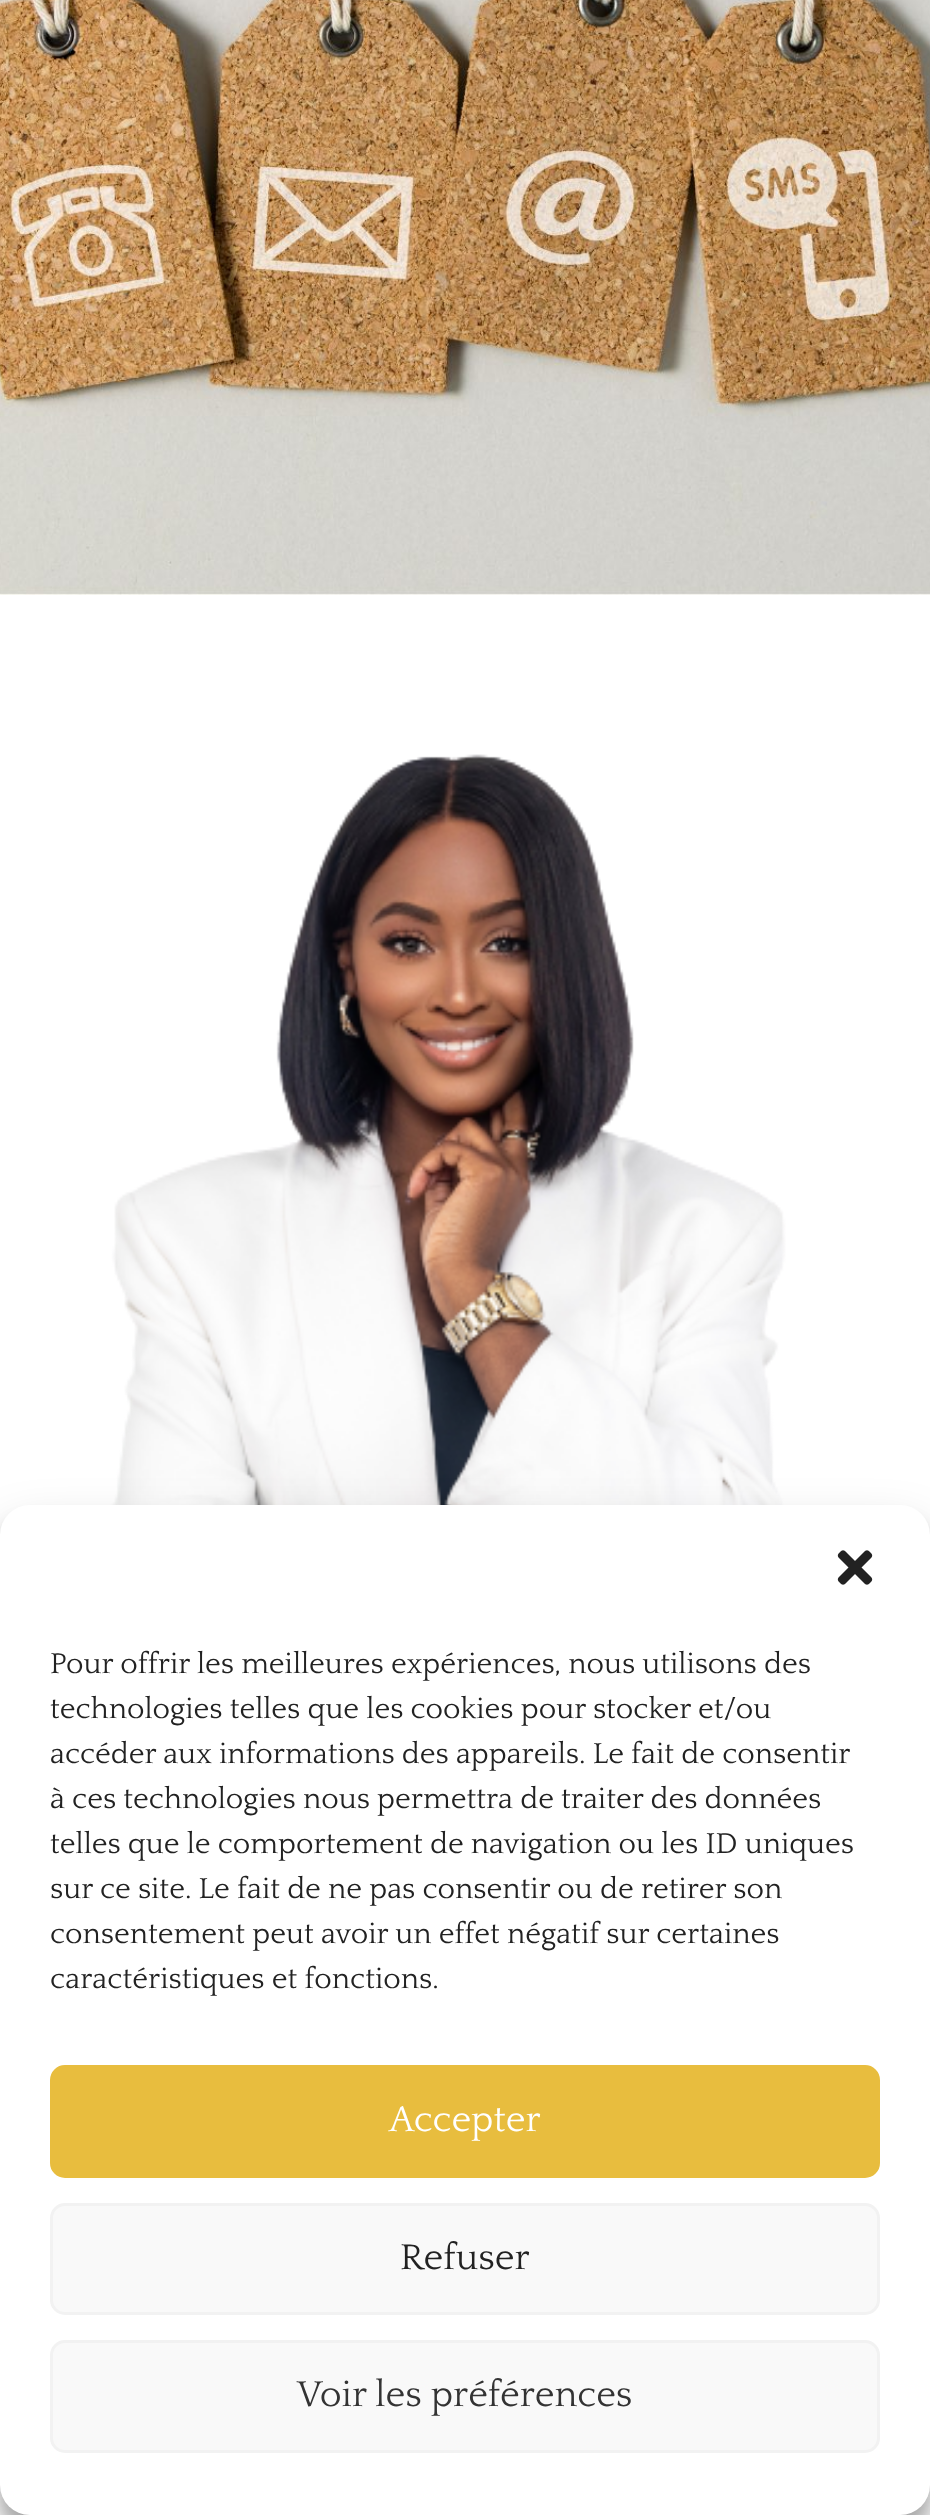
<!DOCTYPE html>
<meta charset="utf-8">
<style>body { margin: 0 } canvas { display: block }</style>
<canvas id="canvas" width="930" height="2515"></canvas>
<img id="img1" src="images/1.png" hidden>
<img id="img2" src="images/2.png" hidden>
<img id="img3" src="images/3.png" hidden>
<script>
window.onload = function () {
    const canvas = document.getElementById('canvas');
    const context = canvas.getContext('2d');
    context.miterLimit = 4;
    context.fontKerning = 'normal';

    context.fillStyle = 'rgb(255, 255, 255)';
    context.fillRect(0, 0, 930, 2515);
    context.drawImage(document.getElementById('img1'), 0, 0, 930, 595);
    context.drawImage(document.getElementById('img2'), 110, 754, 676, 751);
    context.fillStyle = 'rgba(0, 0, 0, 0.23)';
    context.filter = 'blur(7.5px)';
    context.beginPath();
    context.roundRect(0, 1520, 930, 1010, 30);
    context.fill();
    context.filter = 'none';
    context.fillStyle = 'rgba(0, 0, 0, 0.19)';
    context.filter = 'blur(25px)';
    context.beginPath();
    context.roundRect(0, 1530, 930, 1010, 30);
    context.fill();
    context.filter = 'none';
    context.fillStyle = 'rgb(255, 255, 255)';
    context.beginPath();
    context.roundRect(0, 1505, 930, 1010, 30);
    context.fill();
    context.drawImage(document.getElementById('img3'), 837, 1550, 36, 35);
    context.fillStyle = 'rgb(232, 189, 62)';
    context.beginPath();
    context.roundRect(51.5, 2066.5, 827, 110, 13.5);
    context.fill();
    context.strokeStyle = 'rgb(232, 189, 62)';
    context.lineWidth = 3;
    context.stroke();
    context.fillStyle = 'rgb(249, 249, 249)';
    context.beginPath();
    context.roundRect(51.5, 2204.5, 827, 109, 13.5);
    context.fill();
    context.strokeStyle = 'rgb(242, 242, 242)';
    context.stroke();
    context.beginPath();
    context.roundRect(51.5, 2341.5, 827, 110, 13.5);
    context.fill();
    context.stroke();
    context.font = '30px Quattrocento';
    context.fillStyle = 'rgb(34, 34, 34)';
    context.fillText('Pour offrir les meilleures expériences, nous utilisons des', 50, 1673);
    context.fillText('technologies telles que les cookies pour stocker et/ou', 50, 1718);
    context.fillText('accéder aux informations des appareils. Le fait de consentir', 50, 1763);
    context.fillText('à ces technologies nous permettra de traiter des données', 50, 1808);
    context.fillText('telles que le comportement de navigation ou les ID uniques', 50, 1853);
    context.fillText('sur ce site. Le fait de ne pas consentir ou de retirer son', 50, 1898);
    context.fillText('consentement peut avoir un effet négatif sur certaines', 50, 1943);
    context.fillText('caractéristiques et fonctions.', 50, 1988);
    context.font = '37.5px Quattrocento';
    context.fillStyle = 'rgb(255, 255, 255)';
    context.fillText('Accepter', 389, 2131);
    context.fillStyle = 'rgb(34, 34, 34)';
    context.fillText('Refuser', 400, 2269);
    context.fillStyle = 'rgb(51, 51, 51)';
    context.fillText('Voir les préférences', 297, 2406);
};
</script>
